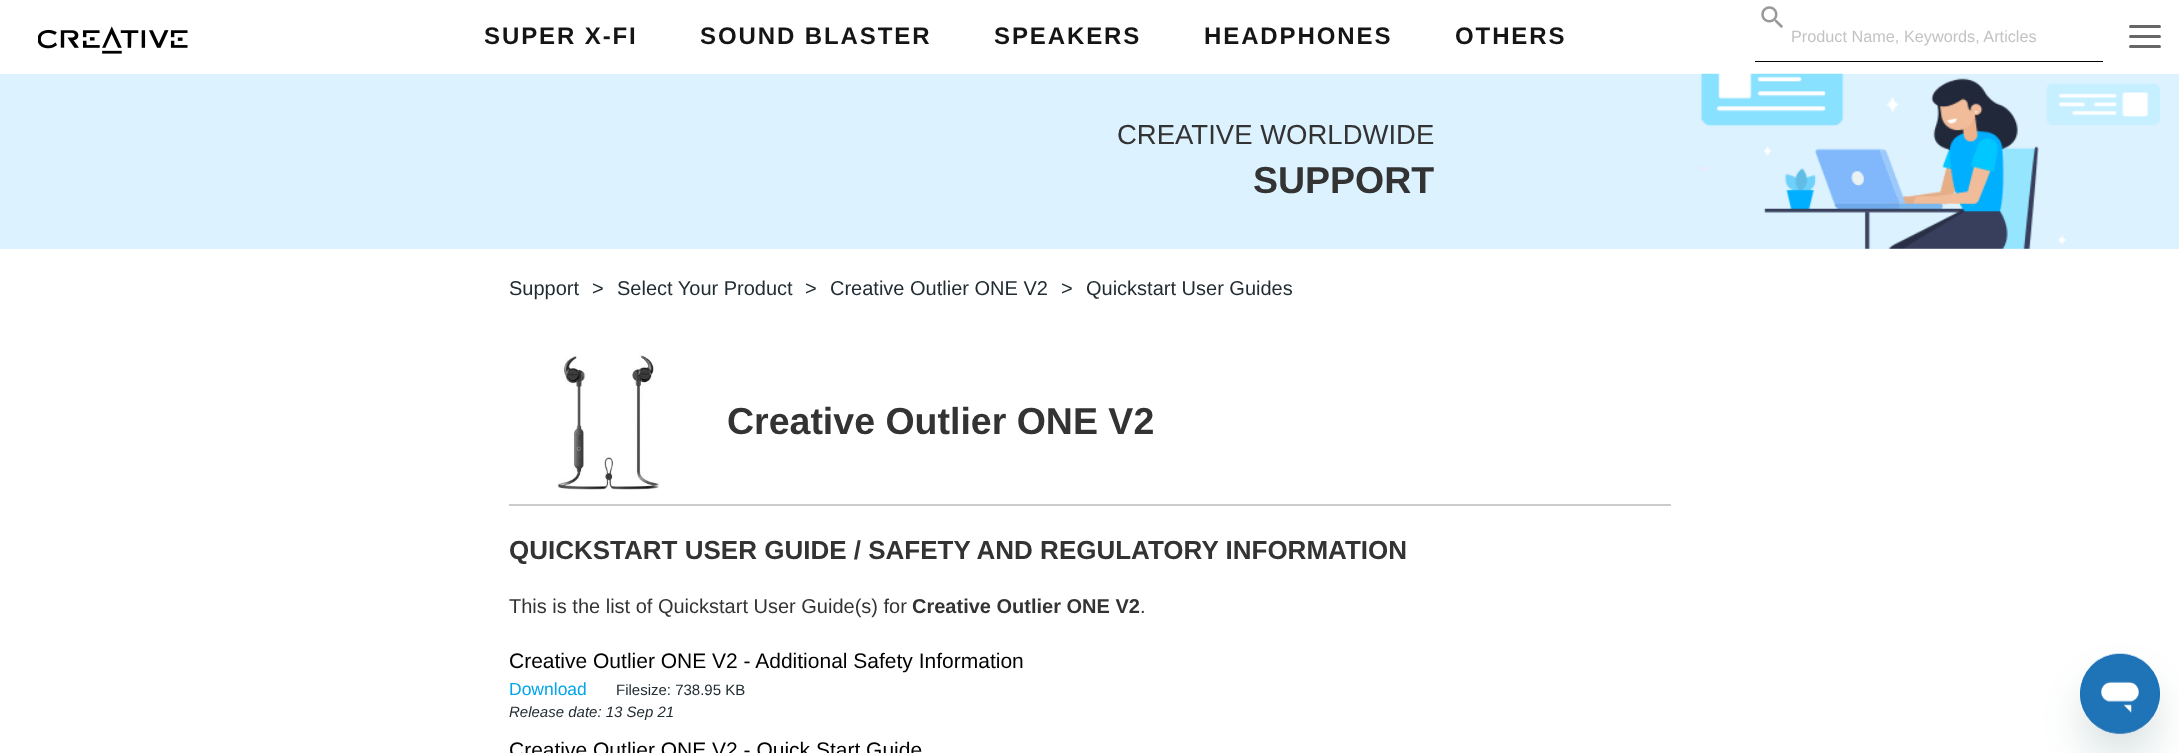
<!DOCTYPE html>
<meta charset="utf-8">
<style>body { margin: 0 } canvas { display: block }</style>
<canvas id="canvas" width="2179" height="753"></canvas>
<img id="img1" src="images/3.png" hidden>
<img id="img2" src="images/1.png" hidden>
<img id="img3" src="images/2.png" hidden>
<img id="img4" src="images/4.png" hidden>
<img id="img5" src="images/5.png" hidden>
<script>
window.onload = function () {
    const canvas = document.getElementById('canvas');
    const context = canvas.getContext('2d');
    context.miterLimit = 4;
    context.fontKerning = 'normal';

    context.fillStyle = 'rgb(255, 255, 255)';
    context.fillRect(0, 0, 2179, 753);
    context.fillStyle = 'rgb(220, 242, 255)';
    context.fillRect(0, 74, 2179, 175);
    context.drawImage(document.getElementById('img1'), 1699, 73, 461, 176);
    context.fillStyle = 'rgba(0, 0, 0, 0.3)';
    context.filter = 'blur(0.5px)';
    context.beginPath();
    context.rect(0, 0, 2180, 73);
    context.fill();
    context.filter = 'none';
    context.fillStyle = 'rgb(255, 255, 255)';
    context.fillRect(0, 0, 2179, 73);
    context.drawImage(document.getElementById('img2'), 38, 26, 150, 28);
    context.drawImage(document.getElementById('img3'), 1761, 6, 22, 22);
    context.fillStyle = 'rgb(0, 0, 0)';
    context.fillRect(1755, 61, 348, 1);
    context.fillStyle = 'rgb(102, 102, 102)';
    context.beginPath();
    context.roundRect(2129, 35, 32, 3, 1.5);
    context.fill();
    context.beginPath();
    context.roundRect(2129, 25, 32, 3, 1.5);
    context.fill();
    context.beginPath();
    context.roundRect(2129, 45, 32, 3, 1.5);
    context.fill();
    context.fillStyle = 'rgb(204, 204, 204)';
    context.fillRect(509, 504, 1162, 2);
    context.drawImage(document.getElementById('img4'), 557, 354, 103, 136);
    context.fillStyle = 'rgba(23, 73, 77, 0.15)';
    context.filter = 'blur(19px)';
    context.beginPath();
    context.roundRect(2080, 679, 80, 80, 40);
    context.fill();
    context.filter = 'none';
    context.drawImage(document.getElementById('img5'), 2080, 653, 80, 81);
    context.letterSpacing = '1.9px';
    context.font = 'bold 24px Liberation Sans';
    context.fillStyle = 'rgb(21, 21, 21)';
    context.fillText('SUPER X-FI', 484, 44);
    context.fillText('SOUND BLASTER', 700, 44);
    context.fillText('SPEAKERS', 994, 44);
    context.fillText('HEADPHONES', 1204, 44);
    context.fillText('OTHERS', 1455, 44);
    context.letterSpacing = '0px';
    context.font = '16.25px Liberation Sans';
    context.fillStyle = 'rgb(195, 195, 195)';
    context.fillText('Product Name, Keywords, Articles', 1791, 42);
    context.font = '27.5px Liberation Sans';
    context.fillStyle = 'rgb(51, 51, 51)';
    context.fillText('CREATIVE WORLDWIDE', 1117, 144);
    context.font = 'bold 37.5px Liberation Sans';
    context.fillText('SUPPORT', 1253, 193);
    context.font = '20px Liberation Sans';
    context.fillStyle = 'rgb(34, 45, 51)';
    context.fillText('Support', 509, 295);
    context.fillText('>', 592, 295);
    context.fillText('Select Your Product', 617, 295);
    context.fillText('>', 805, 295);
    context.fillText('Creative Outlier ONE V2', 830, 295);
    context.fillText('>', 1061, 295);
    context.fillText('Quickstart User Guides', 1086, 295);
    context.font = 'bold 37.5px Liberation Sans';
    context.fillStyle = 'rgb(51, 51, 51)';
    context.fillText('Creative Outlier ONE V2', 727, 434);
    context.font = 'bold 26px Liberation Sans';
    context.fillText('QUICKSTART USER GUIDE / SAFETY AND REGULATORY INFORMATION', 509, 559);
    context.font = '20px Liberation Sans';
    context.fillText('This is the list of Quickstart User Guide(s) for', 509, 613);
    context.font = 'bold 20px Liberation Sans';
    context.fillText('Creative Outlier ONE V2', 912, 613);
    context.font = '20px Liberation Sans';
    context.fillText('.', 1140, 613);
    context.font = '21px Liberation Sans';
    context.fillStyle = 'rgb(0, 0, 0)';
    context.fillText('Creative Outlier ONE V2 - Additional Safety Information', 509, 668);
    context.font = '17.5px Liberation Sans';
    context.fillStyle = 'rgb(0, 165, 236)';
    context.fillText('Download', 509, 695);
    context.font = '15px Liberation Sans';
    context.fillStyle = 'rgb(34, 45, 51)';
    context.fillText('Filesize: 738.95 KB', 616, 695);
    context.font = 'italic 15px Liberation Sans';
    context.fillText('Release date: 13 Sep 21', 509, 717);
    context.font = '21px Liberation Sans';
    context.fillStyle = 'rgb(0, 0, 0)';
    context.fillText('Creative Outlier ONE V2 - Quick Start Guide', 509, 757);
};
</script>
